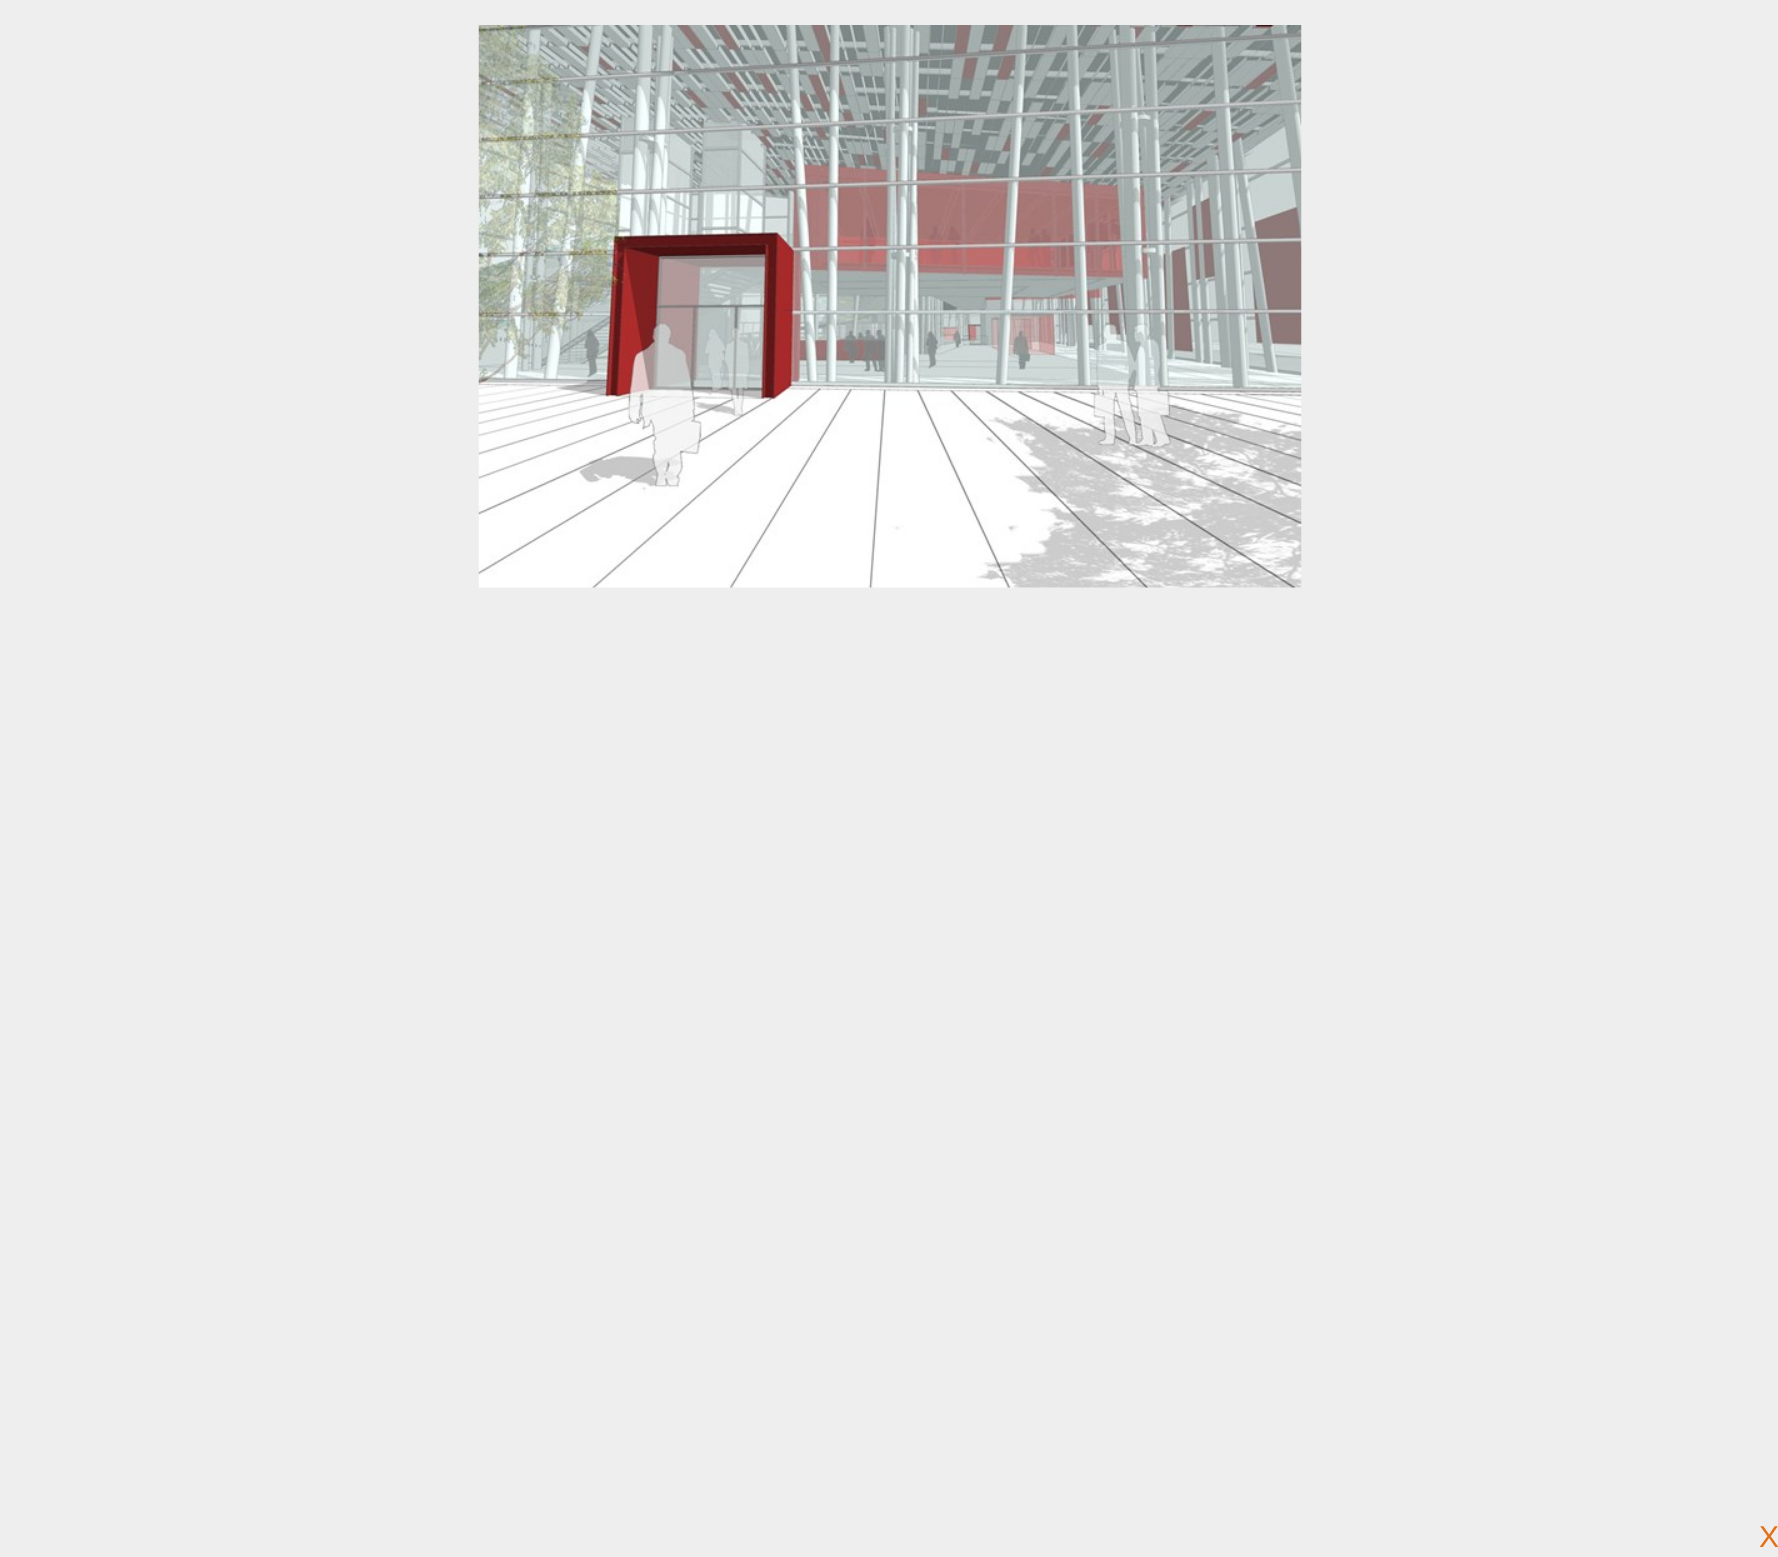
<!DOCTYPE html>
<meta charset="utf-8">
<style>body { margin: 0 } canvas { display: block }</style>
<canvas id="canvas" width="1778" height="1557"></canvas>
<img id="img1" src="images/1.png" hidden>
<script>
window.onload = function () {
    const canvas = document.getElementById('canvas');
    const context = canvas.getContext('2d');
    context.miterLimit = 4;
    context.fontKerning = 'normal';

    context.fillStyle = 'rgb(238, 238, 238)';
    context.fillRect(0, 0, 1778, 1557);
    context.drawImage(document.getElementById('img1'), 478, 25, 824, 563);
    context.font = '30px Liberation Sans';
    context.fillStyle = 'rgb(226, 112, 20)';
    context.fillText('X', 1759, 1547);
};
</script>
